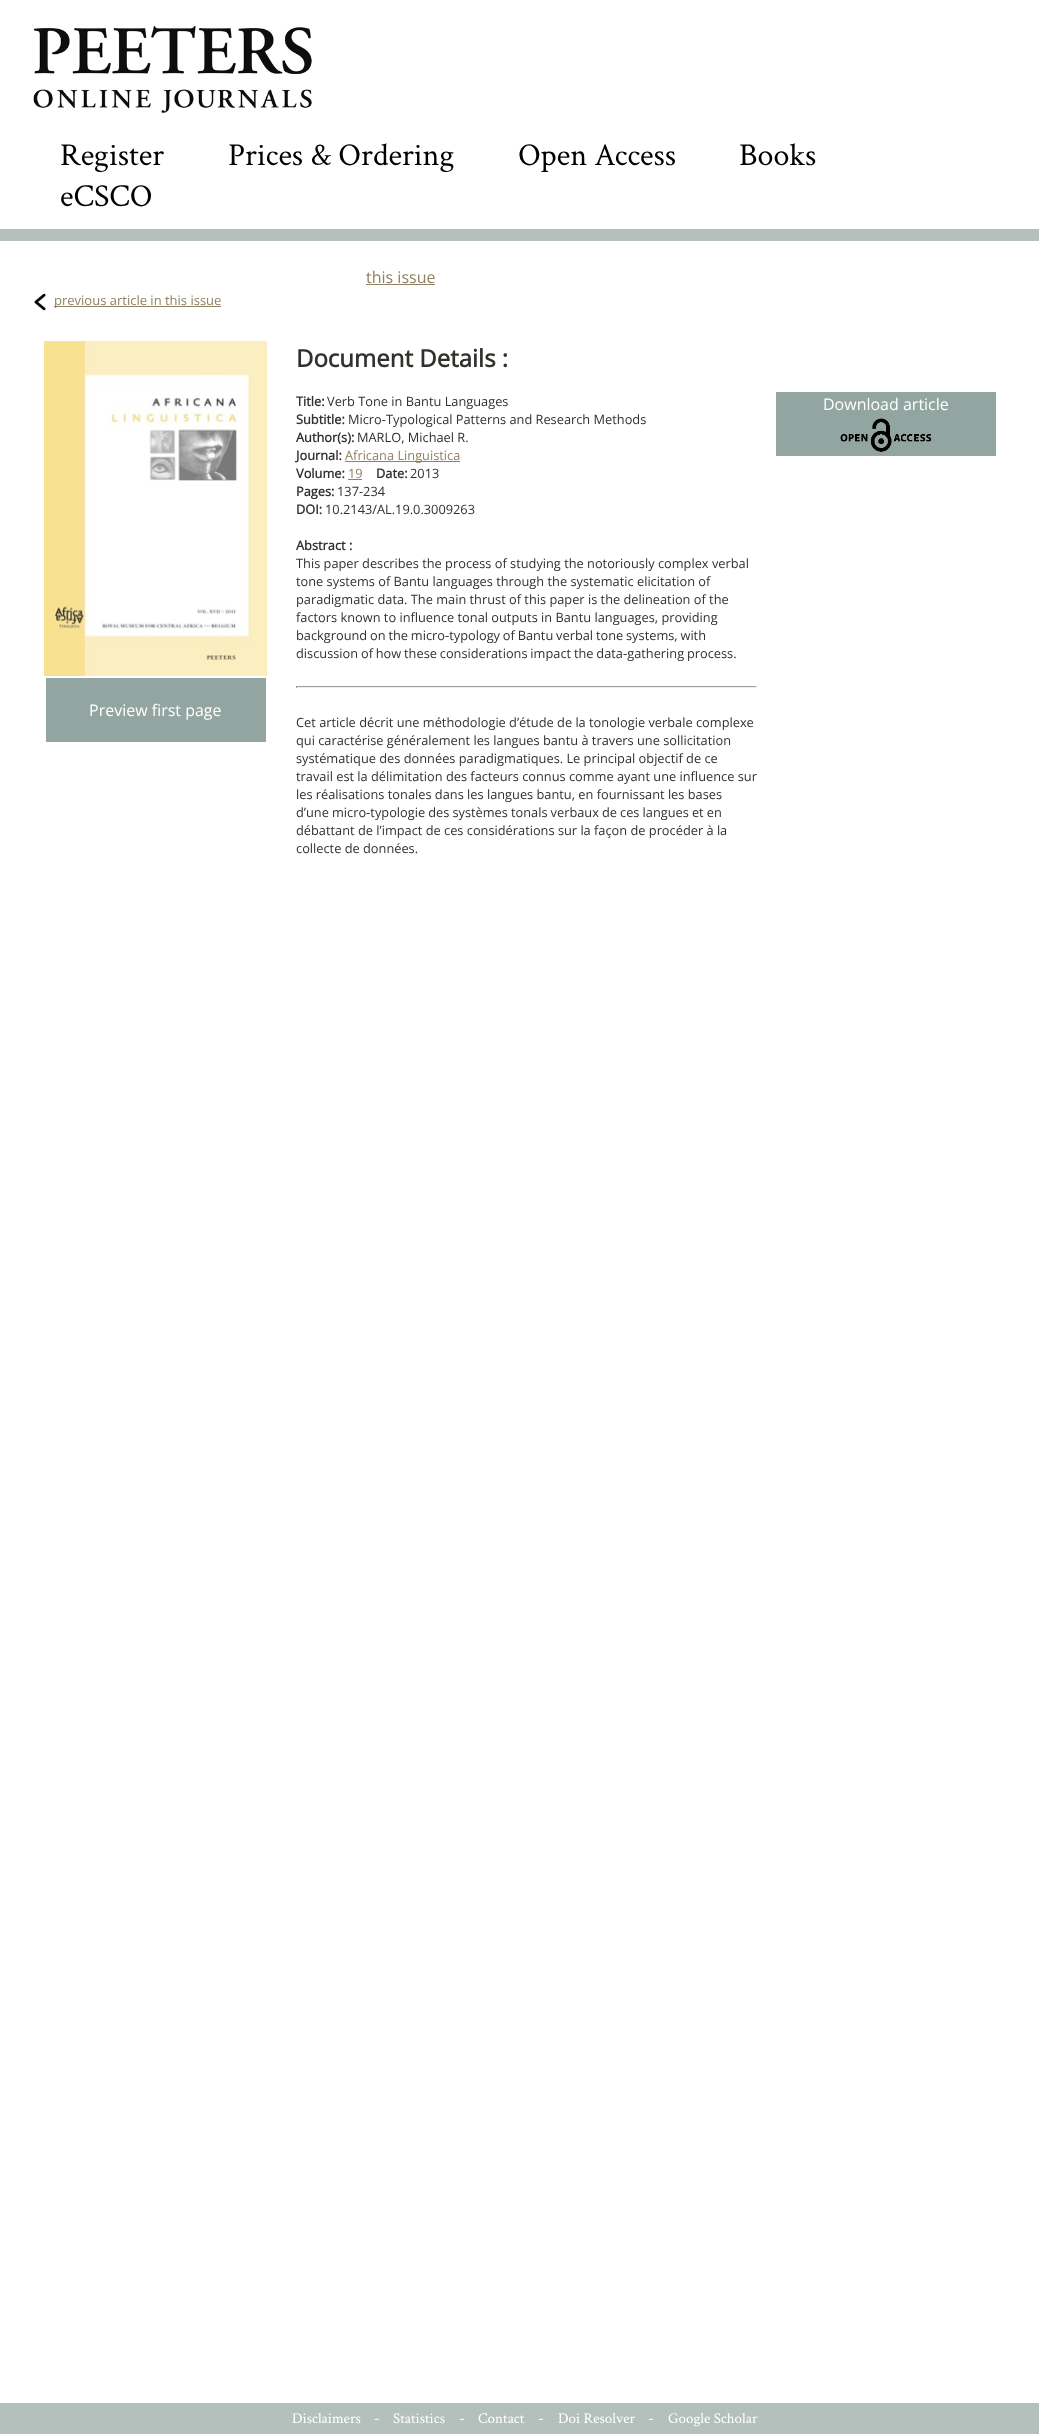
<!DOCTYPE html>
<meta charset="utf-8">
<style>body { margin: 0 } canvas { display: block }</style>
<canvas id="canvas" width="1039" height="2434"></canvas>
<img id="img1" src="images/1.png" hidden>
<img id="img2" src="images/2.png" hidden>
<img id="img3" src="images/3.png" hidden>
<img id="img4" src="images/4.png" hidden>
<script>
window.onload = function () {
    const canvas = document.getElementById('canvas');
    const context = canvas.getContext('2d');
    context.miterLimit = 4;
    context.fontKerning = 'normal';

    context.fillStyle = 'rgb(255, 255, 255)';
    context.fillRect(0, 0, 1039, 2434);
    context.drawImage(document.getElementById('img1'), 33, 26, 279, 87);
    context.fillStyle = 'rgb(179, 192, 188)';
    context.fillRect(0, 229, 1039, 12);
    context.fillStyle = 'rgb(144, 130, 99)';
    context.fillRect(366, 284, 69, 1);
    context.drawImage(document.getElementById('img2'), 34, 293, 12, 18);
    context.fillRect(54, 306, 167, 1);
    context.fillRect(345, 461, 115, 1);
    context.fillRect(348, 479, 14, 1);
    context.fillStyle = 'rgb(159, 159, 159)';
    context.fillRect(296, 686, 461, 1);
    context.fillStyle = 'rgb(238, 238, 238)';
    context.fillRect(756, 686, 1, 2);
    context.fillRect(296, 687, 461, 1);
    context.fillStyle = 'rgb(159, 159, 159)';
    context.fillRect(296, 686, 1, 2);
    context.fillStyle = 'rgb(147, 165, 160)';
    context.fillRect(776, 392, 220, 64);
    context.drawImage(document.getElementById('img3'), 840, 418, 92, 34);
    context.drawImage(document.getElementById('img4'), 44, 341, 223, 335);
    context.fillRect(46, 678, 220, 64);
    context.fillStyle = 'rgb(179, 192, 188)';
    context.fillRect(0, 2403, 1039, 31);
    context.font = '32px Crimson Text';
    context.fillStyle = 'rgb(0, 0, 0)';
    context.fillText('Register', 60, 165);
    context.fillText('Prices & Ordering', 228, 165);
    context.fillText('Open Access', 518, 165);
    context.fillText('Books', 739, 165);
    context.fillText('eCSCO', 60, 206);
    context.font = '16px Open Sans';
    context.fillStyle = 'rgb(144, 130, 99)';
    context.fillText('this issue', 366, 283);
    context.font = '13px Open Sans';
    context.fillText('previous article in this issue', 54, 305);
    context.font = 'bold 24px Open Sans';
    context.fillStyle = 'rgb(50, 49, 46)';
    context.fillText('Document Details :', 296, 367);
    context.font = 'bold 12.8px Open Sans';
    context.fillText('Title:', 296, 406);
    context.font = '12.8px Open Sans';
    context.fillText('Verb Tone in Bantu Languages', 327, 406);
    context.font = 'bold 12.8px Open Sans';
    context.fillText('Subtitle:', 296, 424);
    context.font = '12.8px Open Sans';
    context.fillText('Micro-Typological Patterns and Research Methods', 348, 424);
    context.font = 'bold 12.8px Open Sans';
    context.fillText('Author(s):', 296, 442);
    context.font = '12.8px Open Sans';
    context.fillText('MARLO, Michael R.', 357, 442);
    context.font = 'bold 12.8px Open Sans';
    context.fillText('Journal:', 296, 460);
    context.font = '12.8px Open Sans';
    context.fillStyle = 'rgb(144, 130, 99)';
    context.fillText('Africana Linguistica', 345, 460);
    context.font = 'bold 12.8px Open Sans';
    context.fillStyle = 'rgb(50, 49, 46)';
    context.fillText('Volume:', 296, 478);
    context.font = '12.8px Open Sans';
    context.fillStyle = 'rgb(144, 130, 99)';
    context.fillText('19', 348, 478);
    context.font = 'bold 12.8px Open Sans';
    context.fillStyle = 'rgb(50, 49, 46)';
    context.fillText('Date:', 376, 478);
    context.font = '12.8px Open Sans';
    context.fillText('2013', 410, 478);
    context.font = 'bold 12.8px Open Sans';
    context.fillText('Pages:', 296, 496);
    context.font = '12.8px Open Sans';
    context.fillText('137-234', 337, 496);
    context.font = 'bold 12.8px Open Sans';
    context.fillText('DOI:', 296, 514);
    context.font = '12.8px Open Sans';
    context.fillText('10.2143/AL.19.0.3009263', 325, 514);
    context.font = 'bold 12.8px Open Sans';
    context.fillText('Abstract :', 296, 550);
    context.font = '12.8px Open Sans';
    context.fillText('This paper describes the process of studying the notoriously complex verbal', 296, 568);
    context.fillText('tone systems of Bantu languages through the systematic elicitation of', 296, 586);
    context.fillText('paradigmatic data. The main thrust of this paper is the delineation of the', 296, 604);
    context.fillText('factors known to influence tonal outputs in Bantu languages, providing', 296, 622);
    context.wordSpacing = '-0.5px';
    context.fillText('background on the micro‑typology of Bantu verbal tone systems, with', 296, 640);
    context.fillText('discussion of how these considerations impact the data‑gathering process.', 296, 658);
    context.wordSpacing = '0px';
    context.fillText('Cet article décrit une méthodologie d’étude de la tonologie verbale complexe', 296, 727);
    context.fillText('qui caractérise généralement les langues bantu à travers une sollicitation', 296, 745);
    context.fillText('systématique des données paradigmatiques. Le principal objectif de ce', 296, 763);
    context.fillText('travail est la délimitation des facteurs connus comme ayant une influence sur', 296, 781);
    context.fillText('les réalisations tonales dans les langues bantu, en fournissant les bases', 296, 799);
    context.wordSpacing = '-0.25px';
    context.fillText('d’une micro‑typologie des systèmes tonals verbaux de ces langues et en', 296, 817);
    context.wordSpacing = '0px';
    context.fillText('débattant de l’impact de ces considérations sur la façon de procéder à la', 296, 835);
    context.fillText('collecte de données.', 296, 853);
    context.font = '16px Open Sans';
    context.fillStyle = 'rgb(255, 255, 255)';
    context.fillText('Download article', 823, 410);
    context.fillText('Preview first page', 89, 716);
    context.font = '15px Crimson Text';
    context.fillText('Disclaimers', 292, 2423);
    context.font = '16px Crimson Text';
    context.fillText('-', 374, 2423);
    context.font = '15px Crimson Text';
    context.fillText('Statistics', 393, 2423);
    context.font = '16px Crimson Text';
    context.fillText('-', 459, 2423);
    context.font = '15px Crimson Text';
    context.fillText('Contact', 478, 2423);
    context.font = '16px Crimson Text';
    context.fillText('-', 538, 2423);
    context.font = '15px Crimson Text';
    context.fillText('Doi Resolver', 558, 2423);
    context.font = '16px Crimson Text';
    context.fillText('-', 648, 2423);
    context.font = '15px Crimson Text';
    context.fillText('Google Scholar', 668, 2423);
};
</script>
